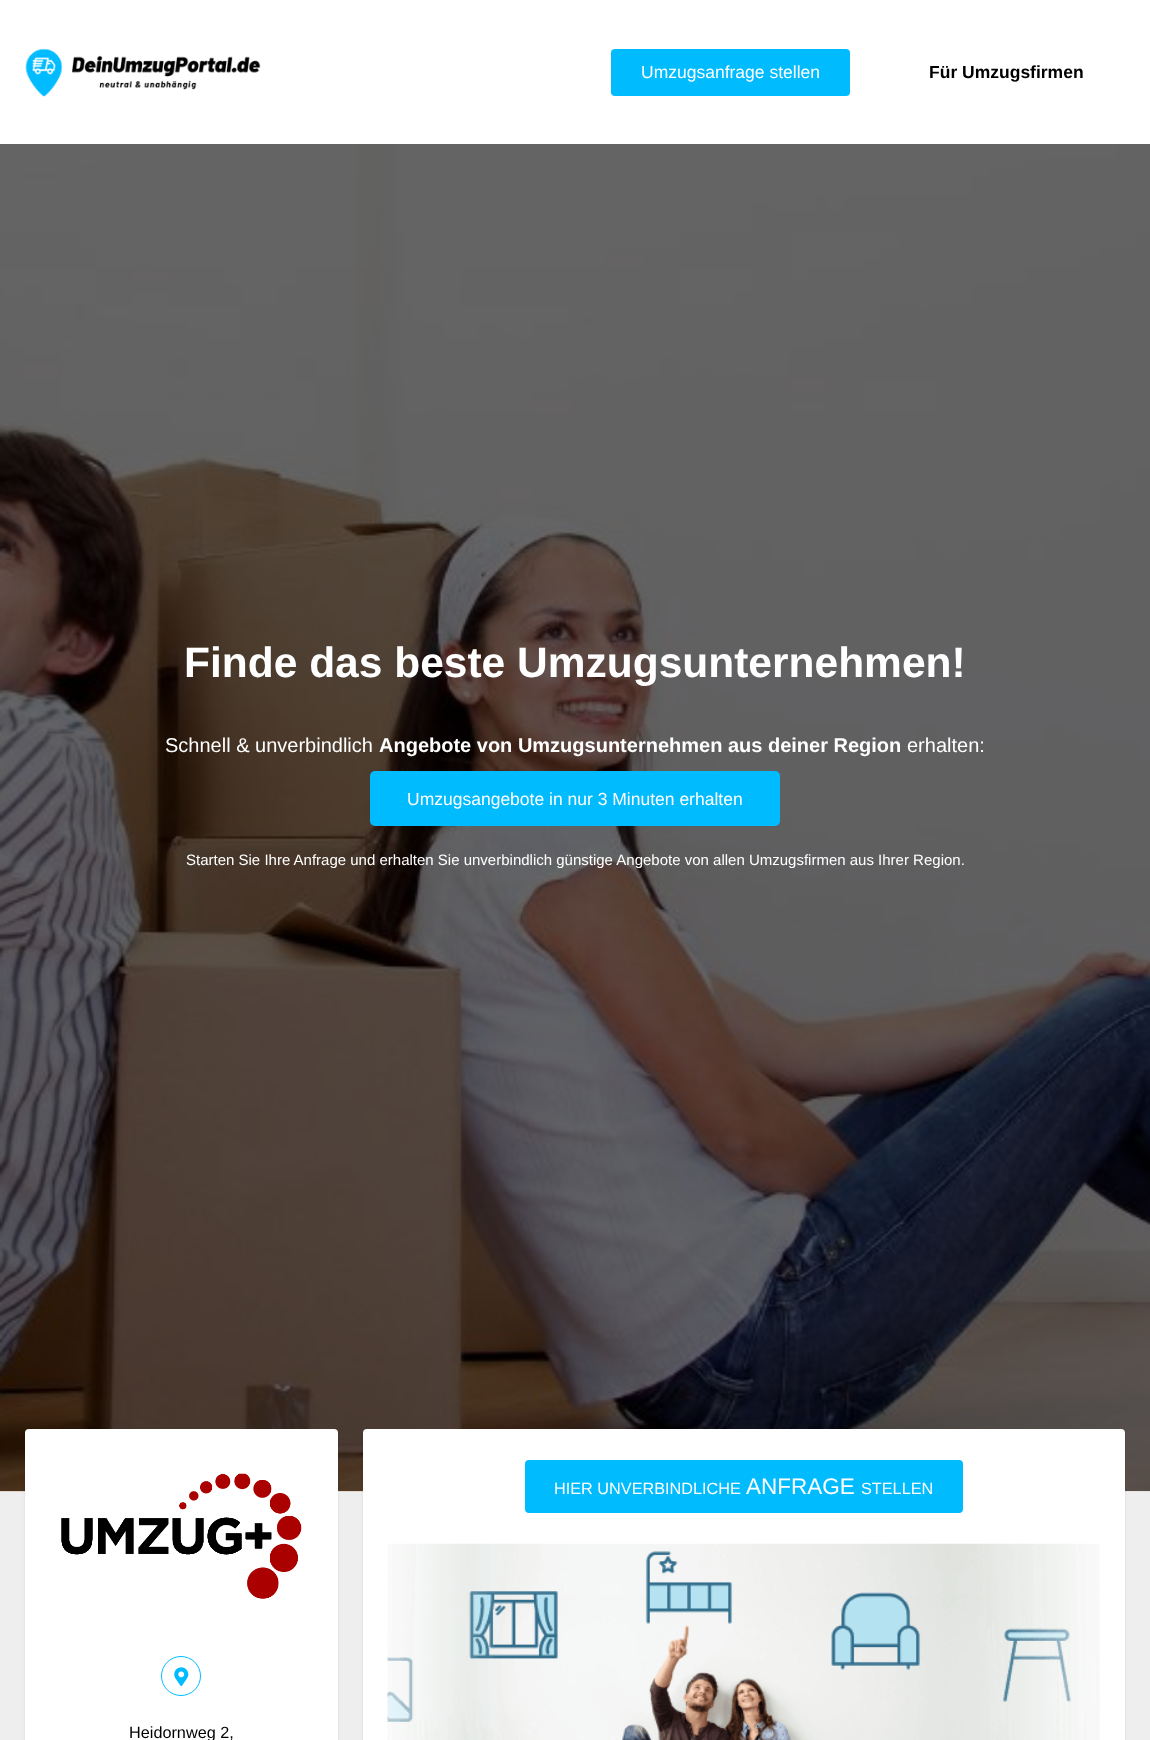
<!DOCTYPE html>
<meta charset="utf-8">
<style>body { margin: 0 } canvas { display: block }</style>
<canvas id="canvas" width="1150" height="1740"></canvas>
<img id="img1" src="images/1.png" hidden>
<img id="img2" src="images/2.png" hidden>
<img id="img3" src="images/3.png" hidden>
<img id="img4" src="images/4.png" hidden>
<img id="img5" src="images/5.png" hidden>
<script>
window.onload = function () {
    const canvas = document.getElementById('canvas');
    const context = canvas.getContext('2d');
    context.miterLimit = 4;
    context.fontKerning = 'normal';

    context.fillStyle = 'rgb(238, 238, 238)';
    context.fillRect(0, 0, 1150, 1740);
    context.fillStyle = 'rgb(255, 255, 255)';
    context.fillRect(0, 0, 1150, 144);
    context.drawImage(document.getElementById('img1'), 25, 48, 236, 49);
    context.fillStyle = 'rgb(0, 188, 255)';
    context.beginPath();
    context.roundRect(611, 49, 239, 47, 4);
    context.fill();
    context.drawImage(document.getElementById('img2'), 0, 144, 1150, 1348);
    context.beginPath();
    context.roundRect(370, 771, 410, 55, 5);
    context.fill();
    context.fillStyle = 'rgba(0, 0, 0, 0.09)';
    context.filter = 'blur(1px)';
    context.beginPath();
    context.roundRect(363, 1430, 762, 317, 4);
    context.fill();
    context.filter = 'none';
    context.fillStyle = 'rgb(255, 255, 255)';
    context.beginPath();
    context.roundRect(363, 1429, 762, 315, 4);
    context.fill();
    context.fillStyle = 'rgb(0, 188, 255)';
    context.beginPath();
    context.roundRect(525, 1460, 438, 53, 4);
    context.fill();
    context.drawImage(document.getElementById('img3'), 387, 1543, 713, 197);
    context.fillStyle = 'rgba(0, 0, 0, 0.09)';
    context.filter = 'blur(1px)';
    context.beginPath();
    context.roundRect(25, 1430, 313, 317, 4);
    context.fill();
    context.filter = 'none';
    context.fillStyle = 'rgb(255, 255, 255)';
    context.beginPath();
    context.roundRect(25, 1429, 313, 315, 4);
    context.fill();
    context.drawImage(document.getElementById('img4'), 61, 1473, 241, 126);
    context.beginPath();
    context.arc(181, 1676, 19.5, 0, 2 * Math.PI);
    context.strokeStyle = 'rgb(0, 188, 255)';
    context.stroke();
    context.drawImage(document.getElementById('img5'), 174, 1667, 15, 20);
    context.font = '17.5px Liberation Sans';
    context.fillText('Umzugsanfrage stellen', 641, 78);
    context.font = 'bold 17.5px Liberation Sans';
    context.fillStyle = 'rgb(0, 0, 0)';
    context.fillText('Für Umzugsfirmen', 929, 78);
    context.font = 'bold 42.5px Liberation Sans';
    context.fillStyle = 'rgb(255, 255, 255)';
    context.fillText('Finde das beste Umzugsunternehmen!', 184, 677);
    context.font = '20px Liberation Sans';
    context.fillText('Schnell & unverbindlich', 165, 752);
    context.font = 'bold 20px Liberation Sans';
    context.fillText('Angebote von Umzugsunternehmen aus deiner Region', 379, 752);
    context.font = '20px Liberation Sans';
    context.fillText('erhalten:', 907, 752);
    context.font = '17.5px Liberation Sans';
    context.fillText('Umzugsangebote in nur 3 Minuten erhalten', 407, 805);
    context.font = '15px Liberation Sans';
    context.fillText('Starten Sie Ihre Anfrage und erhalten Sie unverbindlich günstige Angebote von allen Umzugsfirmen aus Ihrer Region.', 186, 865);
    context.font = '16.25px Liberation Sans';
    context.fillText('HIER UNVERBINDLICHE', 554, 1494);
    context.font = '22.5px Liberation Sans';
    context.fillText('ANFRAGE', 746, 1494);
    context.font = '16.25px Liberation Sans';
    context.fillText('STELLEN', 861, 1494);
    context.fillStyle = 'rgb(0, 0, 0)';
    context.fillText('Heidornweg 2,', 129, 1738);
};
</script>
